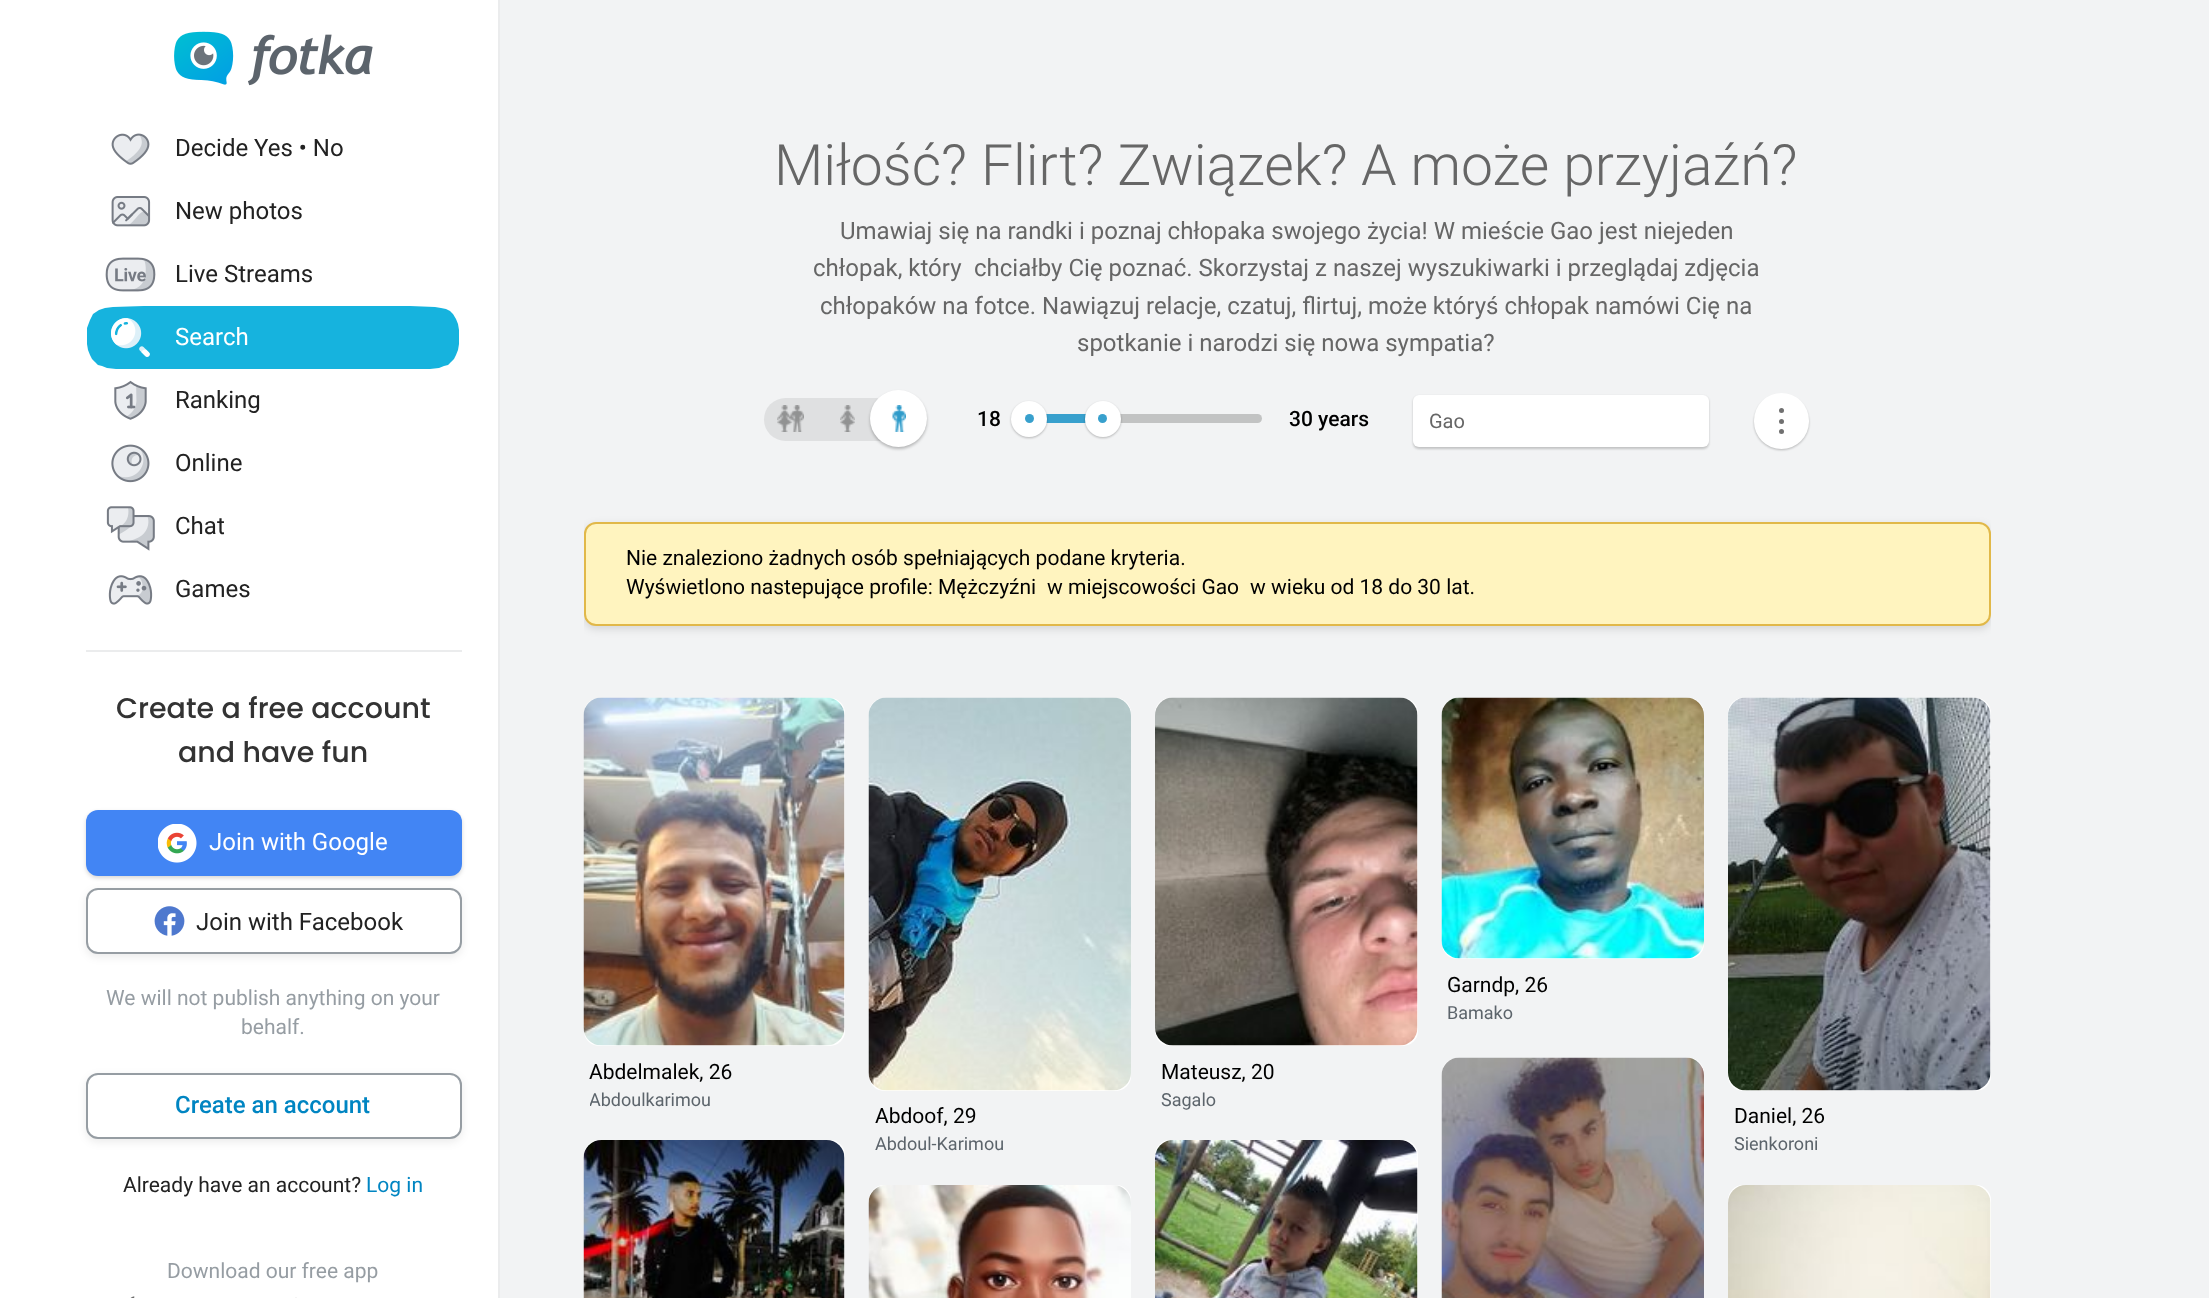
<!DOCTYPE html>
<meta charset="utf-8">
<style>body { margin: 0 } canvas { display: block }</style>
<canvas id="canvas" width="2209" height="1298"></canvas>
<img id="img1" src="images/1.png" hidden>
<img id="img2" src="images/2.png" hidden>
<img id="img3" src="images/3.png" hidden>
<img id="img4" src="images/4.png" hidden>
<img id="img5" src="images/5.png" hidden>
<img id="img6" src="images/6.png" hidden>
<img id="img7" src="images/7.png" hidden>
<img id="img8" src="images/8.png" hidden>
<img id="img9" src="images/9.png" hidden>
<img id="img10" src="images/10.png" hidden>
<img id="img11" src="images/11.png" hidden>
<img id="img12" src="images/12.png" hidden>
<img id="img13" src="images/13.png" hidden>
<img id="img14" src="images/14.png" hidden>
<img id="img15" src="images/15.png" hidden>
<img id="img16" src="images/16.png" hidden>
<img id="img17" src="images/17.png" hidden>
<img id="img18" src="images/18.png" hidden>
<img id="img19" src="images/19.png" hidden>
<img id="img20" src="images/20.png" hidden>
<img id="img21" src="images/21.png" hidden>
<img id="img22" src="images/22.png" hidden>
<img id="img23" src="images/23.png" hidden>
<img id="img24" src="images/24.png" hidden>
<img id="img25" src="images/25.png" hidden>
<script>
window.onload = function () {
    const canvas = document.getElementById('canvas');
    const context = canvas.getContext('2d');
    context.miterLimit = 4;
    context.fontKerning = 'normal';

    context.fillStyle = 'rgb(242, 243, 244)';
    context.fillRect(0, 0, 2209, 1298);
    context.fillStyle = 'rgb(255, 255, 255)';
    context.fillRect(0, 0, 498, 1298);
    context.fillStyle = 'rgb(235, 236, 237)';
    context.fillRect(498, 0, 2, 1298);
    context.drawImage(document.getElementById('img1'), 174, 31, 199, 55);
    context.drawImage(document.getElementById('img2'), 111, 133, 39, 32);
    context.drawImage(document.getElementById('img3'), 111, 196, 40, 31);
    context.drawImage(document.getElementById('img4'), 105, 257, 51, 35);
    context.fillStyle = 'rgb(22, 179, 222)';
    context.beginPath();
    context.moveTo(459, 337);
    context.lineTo(459, 330);
    context.lineTo(458, 324);
    context.lineTo(456, 319);
    context.lineTo(453, 314);
    context.lineTo(450, 311);
    context.lineTo(446, 309);
    context.lineTo(441, 308);
    context.lineTo(435, 307);
    context.lineTo(410, 306);
    context.lineTo(144, 306);
    context.lineTo(113, 307);
    context.lineTo(105, 308);
    context.lineTo(99, 310);
    context.lineTo(93, 314);
    context.lineTo(90, 320);
    context.lineTo(87, 328);
    context.lineTo(87, 338);
    context.lineTo(87, 344);
    context.lineTo(88, 350);
    context.lineTo(90, 355);
    context.lineTo(92, 359);
    context.lineTo(95, 362);
    context.lineTo(98, 365);
    context.lineTo(102, 366);
    context.lineTo(107, 368);
    context.lineTo(116, 369);
    context.lineTo(131, 369);
    context.lineTo(278, 369);
    context.lineTo(415, 369);
    context.lineTo(430, 369);
    context.lineTo(439, 368);
    context.lineTo(444, 366);
    context.lineTo(448, 365);
    context.lineTo(451, 362);
    context.lineTo(454, 359);
    context.lineTo(456, 355);
    context.lineTo(458, 350);
    context.lineTo(459, 344);
    context.lineTo(459, 338);
    context.closePath();
    context.fill();
    context.drawImage(document.getElementById('img5'), 111, 318, 39, 39);
    context.drawImage(document.getElementById('img6'), 114, 380, 33, 40);
    context.drawImage(document.getElementById('img7'), 111, 444, 39, 39);
    context.drawImage(document.getElementById('img8'), 106, 506, 49, 45);
    context.drawImage(document.getElementById('img9'), 108, 575, 45, 30);
    context.fillStyle = 'rgb(235, 236, 237)';
    context.fillRect(86, 650, 376, 2);
    context.fillStyle = 'rgba(0, 0, 0, 0.16)';
    context.filter = 'blur(2px)';
    context.beginPath();
    context.roundRect(86, 812, 376, 66, 12);
    context.fill();
    context.filter = 'none';
    context.fillStyle = 'rgb(66, 133, 244)';
    context.beginPath();
    context.roundRect(86, 810, 376, 66, 12);
    context.fill();
    context.drawImage(document.getElementById('img10'), 158, 824, 39, 39);
    context.fillStyle = 'rgba(0, 0, 0, 0.08)';
    context.filter = 'blur(4.5px)';
    context.beginPath();
    context.roundRect(86, 891, 376, 66, 12);
    context.fill();
    context.filter = 'none';
    context.fillStyle = 'rgb(255, 255, 255)';
    context.beginPath();
    context.roundRect(87, 889, 374, 64, 11);
    context.fill();
    context.strokeStyle = 'rgb(150, 157, 163)';
    context.lineWidth = 2;
    context.stroke();
    context.drawImage(document.getElementById('img11'), 154, 906, 31, 30);
    context.fillStyle = 'rgba(0, 0, 0, 0.08)';
    context.filter = 'blur(4.5px)';
    context.beginPath();
    context.roundRect(86, 1076, 376, 66, 12);
    context.fill();
    context.filter = 'none';
    context.fillStyle = 'rgb(255, 255, 255)';
    context.beginPath();
    context.roundRect(87, 1074, 374, 64, 11);
    context.fill();
    context.stroke();
    context.drawImage(document.getElementById('img12'), 130, 1296, 5, 2);
    context.fillStyle = 'rgb(245, 245, 245)';
    context.fillRect(295, 1297, 2, 1);
    context.fillStyle = 'rgb(223, 224, 225)';
    context.beginPath();
    context.roundRect(764, 398, 163, 43, 21.5);
    context.fill();
    context.fillStyle = 'rgba(0, 0, 1, 0.25)';
    context.filter = 'blur(1.5px)';
    context.beginPath();
    context.roundRect(870, 392, 57, 57, 28.5);
    context.fill();
    context.filter = 'none';
    context.fillStyle = 'rgb(255, 255, 255)';
    context.beginPath();
    context.arc(898.5, 418.5, 28.5, 0, 2 * Math.PI);
    context.fill();
    context.drawImage(document.getElementById('img13'), 777, 405, 27, 27);
    context.drawImage(document.getElementById('img14'), 840, 405, 15, 27);
    context.drawImage(document.getElementById('img15'), 892, 405, 14, 27);
    context.fillStyle = 'rgb(194, 195, 195)';
    context.beginPath();
    context.roundRect(1029, 414, 233, 9, 4.5);
    context.fill();
    context.fillStyle = 'rgb(56, 160, 205)';
    context.fillRect(1046, 414, 40, 9);
    context.fillStyle = 'rgba(0, 0, 1, 0.25)';
    context.filter = 'blur(1px)';
    context.beginPath();
    context.roundRect(1011, 402, 36, 36, 18);
    context.fill();
    context.filter = 'none';
    context.fillStyle = 'rgb(255, 255, 255)';
    context.beginPath();
    context.arc(1029, 419, 18, 0, 2 * Math.PI);
    context.fill();
    context.fillStyle = 'rgb(56, 160, 205)';
    context.beginPath();
    context.arc(1029.5, 418.5, 4.5, 0, 2 * Math.PI);
    context.fill();
    context.fillStyle = 'rgba(0, 0, 1, 0.25)';
    context.filter = 'blur(1px)';
    context.beginPath();
    context.roundRect(1085, 402, 36, 36, 18);
    context.fill();
    context.filter = 'none';
    context.fillStyle = 'rgb(255, 255, 255)';
    context.beginPath();
    context.arc(1103, 419, 18, 0, 2 * Math.PI);
    context.fill();
    context.fillStyle = 'rgb(56, 160, 205)';
    context.beginPath();
    context.arc(1102.5, 418.5, 4.5, 0, 2 * Math.PI);
    context.fill();
    context.fillStyle = 'rgba(0, 0, 1, 0.2)';
    context.filter = 'blur(1px)';
    context.beginPath();
    context.roundRect(1413, 396, 296, 53, 6);
    context.fill();
    context.filter = 'none';
    context.fillStyle = 'rgb(255, 255, 255)';
    context.beginPath();
    context.roundRect(1413, 395, 296, 52, 6);
    context.fill();
    context.fillStyle = 'rgba(0, 0, 1, 0.25)';
    context.filter = 'blur(1px)';
    context.beginPath();
    context.roundRect(1754, 395, 55, 55, 27.5);
    context.fill();
    context.filter = 'none';
    context.fillStyle = 'rgb(255, 255, 255)';
    context.beginPath();
    context.roundRect(1754, 393, 55, 56, 27.5);
    context.fill();
    context.fillStyle = 'rgb(112, 112, 112)';
    context.beginPath();
    context.arc(1781.5, 431.5, 2.5, 0, 2 * Math.PI);
    context.fill();
    context.beginPath();
    context.arc(1781.5, 421.5, 2.5, 0, 2 * Math.PI);
    context.fill();
    context.beginPath();
    context.arc(1781.5, 410.5, 2.5, 0, 2 * Math.PI);
    context.fill();
    context.save();
    context.beginPath();
    context.rect(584, 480, 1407, 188);
    context.clip();
    context.fillStyle = 'rgba(0, 0, 0, 0.12)';
    context.filter = 'blur(4.5px)';
    context.beginPath();
    context.roundRect(584, 525, 1407, 104, 12);
    context.fill();
    context.filter = 'none';
    context.restore();
    context.fillStyle = 'rgb(255, 244, 191)';
    context.beginPath();
    context.roundRect(585, 523, 1405, 102, 11);
    context.fill();
    context.strokeStyle = 'rgb(225, 184, 73)';
    context.stroke();
    context.fillStyle = 'rgb(255, 255, 255)';
    context.beginPath();
    context.roundRect(1442, 698, 262, 261, 15);
    context.fill();
    context.drawImage(document.getElementById('img16'), 1441, 697, 263, 262);
    context.beginPath();
    context.roundRect(584, 698, 261, 348, 15);
    context.fill();
    context.drawImage(document.getElementById('img17'), 583, 697, 262, 349);
    context.beginPath();
    context.roundRect(1155, 698, 263, 348, 15);
    context.fill();
    context.drawImage(document.getElementById('img18'), 1155, 697, 263, 349);
    context.beginPath();
    context.roundRect(1442, 1058, 262, 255, 15);
    context.fill();
    context.drawImage(document.getElementById('img19'), 1441, 1057, 263, 241);
    context.beginPath();
    context.roundRect(869, 698, 262, 393, 15);
    context.fill();
    context.drawImage(document.getElementById('img20'), 868, 697, 263, 394);
    context.beginPath();
    context.roundRect(1728, 698, 263, 393, 15);
    context.fill();
    context.drawImage(document.getElementById('img21'), 1728, 697, 263, 394);
    context.beginPath();
    context.roundRect(584, 1140, 261, 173, 15);
    context.fill();
    context.drawImage(document.getElementById('img22'), 583, 1140, 262, 158);
    context.beginPath();
    context.roundRect(869, 1185, 262, 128, 15);
    context.fill();
    context.drawImage(document.getElementById('img23'), 868, 1185, 263, 113);
    context.beginPath();
    context.roundRect(1155, 1140, 263, 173, 15);
    context.fill();
    context.drawImage(document.getElementById('img24'), 1155, 1140, 263, 158);
    context.beginPath();
    context.roundRect(1728, 1185, 263, 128, 15);
    context.fill();
    context.drawImage(document.getElementById('img25'), 1728, 1185, 263, 113);
    context.font = '24px Roboto';
    context.fillStyle = 'rgb(34, 34, 34)';
    context.fillText('Decide Yes • No', 175, 156);
    context.fillText('New photos', 175, 219);
    context.fillText('Live Streams', 175, 282);
    context.fillStyle = 'rgb(255, 255, 255)';
    context.fillText('Search', 175, 345);
    context.fillStyle = 'rgb(34, 34, 34)';
    context.fillText('Ranking', 175, 408);
    context.fillText('Online', 175, 471);
    context.fillText('Chat', 175, 534);
    context.fillText('Games', 175, 597);
    context.font = '500 28.5px Poppins';
    context.fillStyle = 'rgb(51, 51, 51)';
    context.fillText('Create a free account', 116, 718);
    context.fillText('and have fun', 178, 762);
    context.font = '24px Roboto';
    context.fillStyle = 'rgb(255, 255, 255)';
    context.fillText('Join with Google', 209, 850);
    context.fillStyle = 'rgb(34, 34, 34)';
    context.fillText('Join with Facebook', 196, 930);
    context.font = '21px Roboto';
    context.fillStyle = 'rgb(150, 157, 163)';
    context.fillText('We will not publish anything on your', 106, 1005);
    context.fillText('behalf.', 241, 1034);
    context.font = '500 24px Roboto';
    context.fillStyle = 'rgb(0, 133, 194)';
    context.fillText('Create an account', 175, 1113);
    context.font = '21px Roboto';
    context.fillStyle = 'rgb(34, 34, 34)';
    context.fillText('Already have an account?', 123, 1192);
    context.fillStyle = 'rgb(0, 133, 194)';
    context.fillText('Log in', 366, 1192);
    context.fillStyle = 'rgb(150, 157, 163)';
    context.fillText('Download our free app', 167, 1278);
    context.font = '300 57px Roboto';
    context.fillStyle = 'rgb(102, 102, 102)';
    context.fillText('Miłość? Flirt? Związek?', 774, 185);
    context.fillText('A może przyjaźń?', 1361, 185);
    context.font = '24px Roboto';
    context.fillText('Umawiaj się na randki i poznaj chłopaka swojego życia! W mieście Gao jest niejeden', 840, 239);
    context.fillText('chłopak, który', 813, 276);
    context.fillText('chciałby Cię poznać. Skorzystaj z naszej wyszukiwarki i przeglądaj zdjęcia', 974, 276);
    context.fillText('chłopaków na fotce. Nawiązuj relacje, czatuj, flirtuj, może któryś chłopak', 820, 314);
    context.fillText('namówi Cię na', 1595, 314);
    context.fillText('spotkanie i narodzi się nowa sympatia?', 1077, 351);
    context.font = '500 21px Roboto';
    context.fillStyle = 'rgb(0, 0, 0)';
    context.fillText('18', 977, 426);
    context.fillText('30 years', 1289, 426);
    context.font = '20px Roboto';
    context.fillStyle = 'rgb(102, 102, 102)';
    context.fillText('Gao', 1429, 428);
    context.font = '21px Roboto';
    context.fillStyle = 'rgb(0, 0, 0)';
    context.fillText('Nie znaleziono żadnych osób spełniających podane kryteria.', 626, 565);
    context.fillText('Wyświetlono nastepujące profile: Mężczyźni', 626, 594);
    context.fillText('w miejscowości Gao', 1047, 594);
    context.fillText('w wieku od 18 do 30 lat.', 1250, 594);
    context.fillText('Garndp, 26', 1447, 992);
    context.font = '18px Roboto';
    context.fillStyle = 'rgb(92, 100, 107)';
    context.fillText('Bamako', 1447, 1019);
    context.font = '21px Roboto';
    context.fillStyle = 'rgb(0, 0, 0)';
    context.fillText('Abdelmalek, 26', 589, 1079);
    context.save();
    context.beginPath();
    context.rect(590, 1058, 255, 57);
    context.clip();
    context.font = '18px Roboto';
    context.fillStyle = 'rgb(92, 100, 107)';
    context.fillText('Abdoulkarimou', 589, 1106);
    context.restore();
    context.fillText('Mateusz, 20', 1161, 1079);
    context.font = '18px Roboto';
    context.fillStyle = 'rgb(92, 100, 107)';
    context.fillText('Sagalo', 1161, 1106);
    context.font = '21px Roboto';
    context.fillStyle = 'rgb(0, 0, 0)';
    context.fillText('Abdoof, 29', 875, 1123);
    context.font = '18px Roboto';
    context.fillStyle = 'rgb(92, 100, 107)';
    context.fillText('Abdoul-Karimou', 875, 1150);
    context.font = '21px Roboto';
    context.fillStyle = 'rgb(0, 0, 0)';
    context.fillText('Daniel, 26', 1734, 1123);
    context.font = '18px Roboto';
    context.fillStyle = 'rgb(92, 100, 107)';
    context.fillText('Sienkoroni', 1734, 1150);
};
</script>
